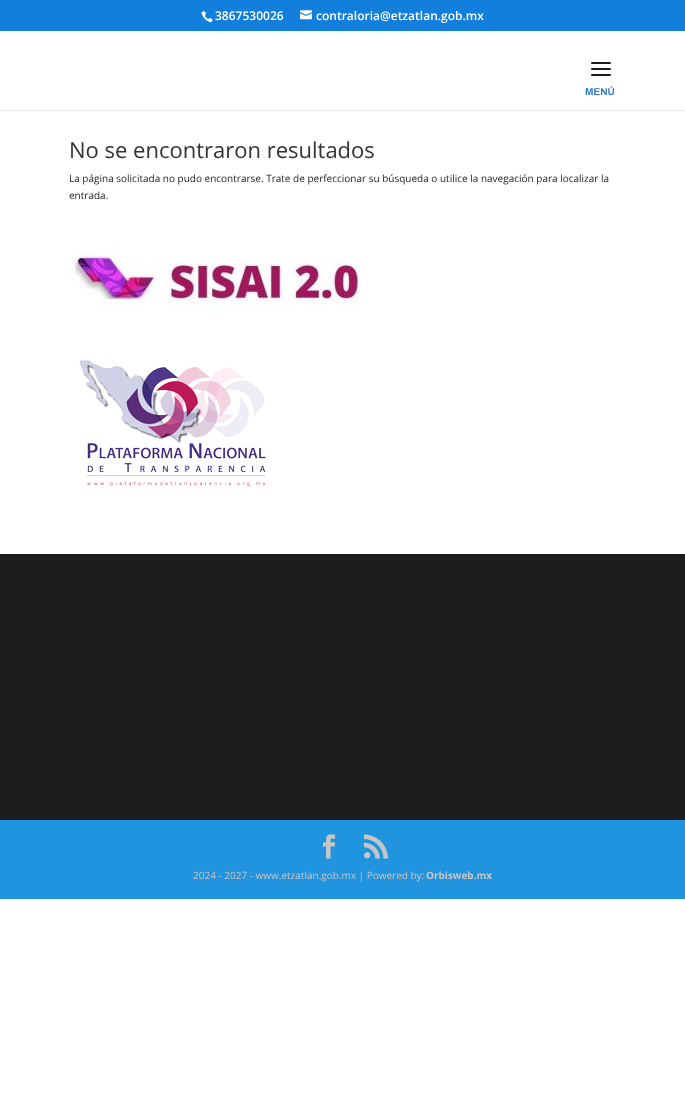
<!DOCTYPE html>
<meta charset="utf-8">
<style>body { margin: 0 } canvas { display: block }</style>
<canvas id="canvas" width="685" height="1116"></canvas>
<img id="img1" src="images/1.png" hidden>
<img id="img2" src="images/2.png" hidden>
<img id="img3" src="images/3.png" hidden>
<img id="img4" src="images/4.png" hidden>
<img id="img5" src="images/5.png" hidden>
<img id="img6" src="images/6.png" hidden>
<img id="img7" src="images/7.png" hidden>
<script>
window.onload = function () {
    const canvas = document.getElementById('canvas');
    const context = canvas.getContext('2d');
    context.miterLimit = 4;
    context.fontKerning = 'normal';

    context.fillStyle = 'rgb(255, 255, 255)';
    context.fillRect(0, 0, 685, 1116);
    context.fillStyle = 'rgb(19, 127, 221)';
    context.fillRect(0, 0, 685, 31);
    context.drawImage(document.getElementById('img1'), 201, 11, 12, 12);
    context.drawImage(document.getElementById('img2'), 300, 10, 12, 10);
    context.fillStyle = 'rgb(230, 230, 230)';
    context.fillRect(0, 110, 685, 1);
    context.drawImage(document.getElementById('img3'), 591, 62, 20, 14);
    context.drawImage(document.getElementById('img4'), 69, 246, 296, 65);
    context.drawImage(document.getElementById('img5'), 79, 360, 187, 127);
    context.fillStyle = 'rgb(28, 28, 28)';
    context.fillRect(0, 554, 685, 266);
    context.fillStyle = 'rgb(33, 148, 224)';
    context.fillRect(0, 820, 685, 79);
    context.drawImage(document.getElementById('img6'), 323, 834, 12, 25);
    context.drawImage(document.getElementById('img7'), 364, 834, 24, 25);
    context.font = '600 12px Open Sans';
    context.fillStyle = 'rgb(255, 255, 255)';
    context.fillText('3867530026', 215, 20);
    context.fillText('contraloria@etzatlan.gob.mx', 316, 20);
    context.font = '600 10px Archivo';
    context.fillStyle = 'rgb(37, 116, 206)';
    context.fillText('MENÚ', 585, 95);
    context.font = '22px Open Sans';
    context.fillStyle = 'rgb(51, 51, 51)';
    context.fillText('No se encontraron resultados', 69, 158);
    context.font = '10px Open Sans';
    context.fillStyle = 'rgb(32, 27, 28)';
    context.fillText('La página solicitada no pudo encontrarse. Trate de perfeccionar su búsqueda o utilice la navegación para localizar la', 69, 182);
    context.fillText('entrada.', 69, 199);
    context.fillStyle = 'rgb(198, 198, 198)';
    context.fillText('2024 - 2027 - www.etzatlan.gob.mx | Powered by:', 193, 879);
    context.font = 'bold 10px Open Sans';
    context.fillText('Orbisweb.mx', 426, 879);
};
</script>
